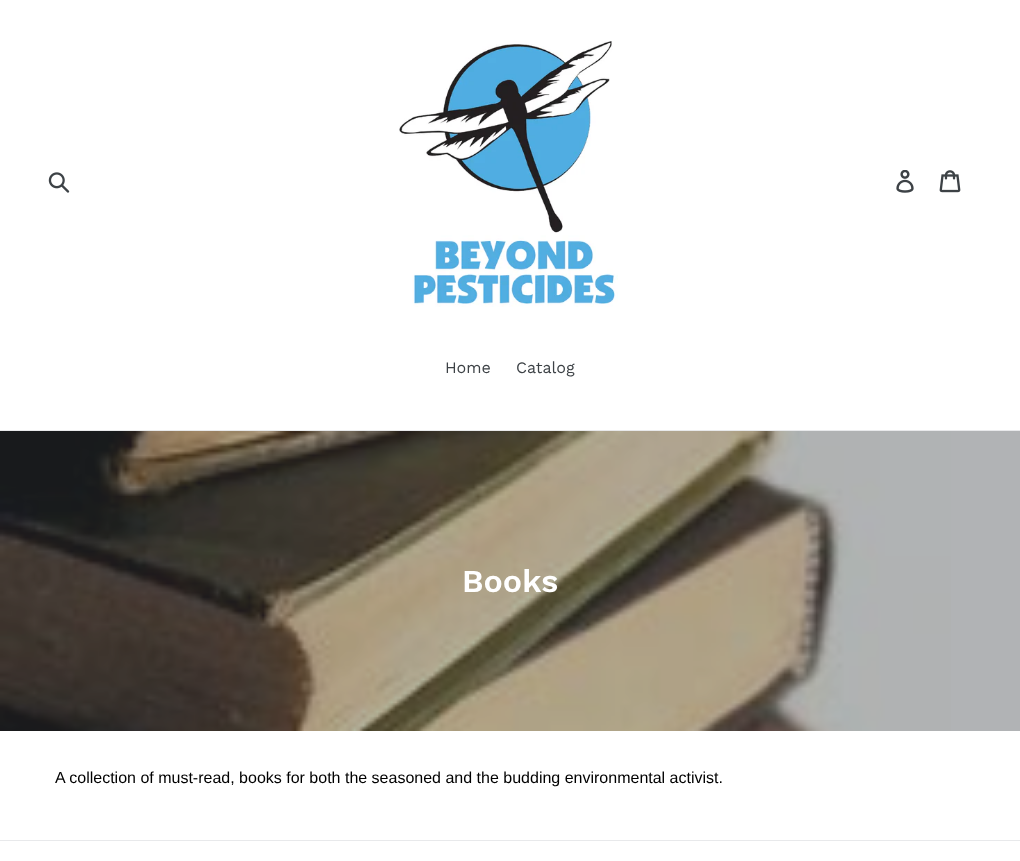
<!DOCTYPE html>
<meta charset="utf-8">
<style>body { margin: 0 } canvas { display: block }</style>
<canvas id="canvas" width="1020" height="861"></canvas>
<img id="img1" src="images/1.png" hidden>
<img id="img2" src="images/2.png" hidden>
<img id="img3" src="images/3.png" hidden>
<img id="img4" src="images/4.png" hidden>
<img id="img5" src="images/5.png" hidden>
<script>
window.onload = function () {
    const canvas = document.getElementById('canvas');
    const context = canvas.getContext('2d');
    context.miterLimit = 4;
    context.fontKerning = 'normal';

    context.fillStyle = 'rgb(255, 255, 255)';
    context.fillRect(0, 0, 1020, 861);
    context.fillStyle = 'rgb(177, 179, 181)';
    context.fillRect(951, 431, 69, 300);
    context.drawImage(document.getElementById('img1'), 48, 172, 22, 21);
    context.drawImage(document.getElementById('img2'), 399, 41, 219, 266);
    context.drawImage(document.getElementById('img3'), 896, 170, 18, 23);
    context.drawImage(document.getElementById('img4'), 939, 170, 22, 23);
    context.fillStyle = 'rgb(232, 233, 235)';
    context.fillRect(0, 430, 1020, 1);
    context.drawImage(document.getElementById('img5'), 0, 431, 951, 300);
    context.fillRect(0, 840, 1020, 1);
    context.font = '16px Work Sans';
    context.fillStyle = 'rgb(61, 66, 70)';
    context.fillText('Home', 445, 373);
    context.fillText('Catalog', 516, 373);
    context.font = '600 32px Work Sans';
    context.fillStyle = 'rgb(255, 255, 255)';
    context.fillText('Books', 462, 592);
    context.font = '16px Liberation Sans';
    context.fillStyle = 'rgb(0, 0, 0)';
    context.fillText('A collection of must-read, books for both the seasoned and the budding environmental activist.', 55, 783);
};
</script>
